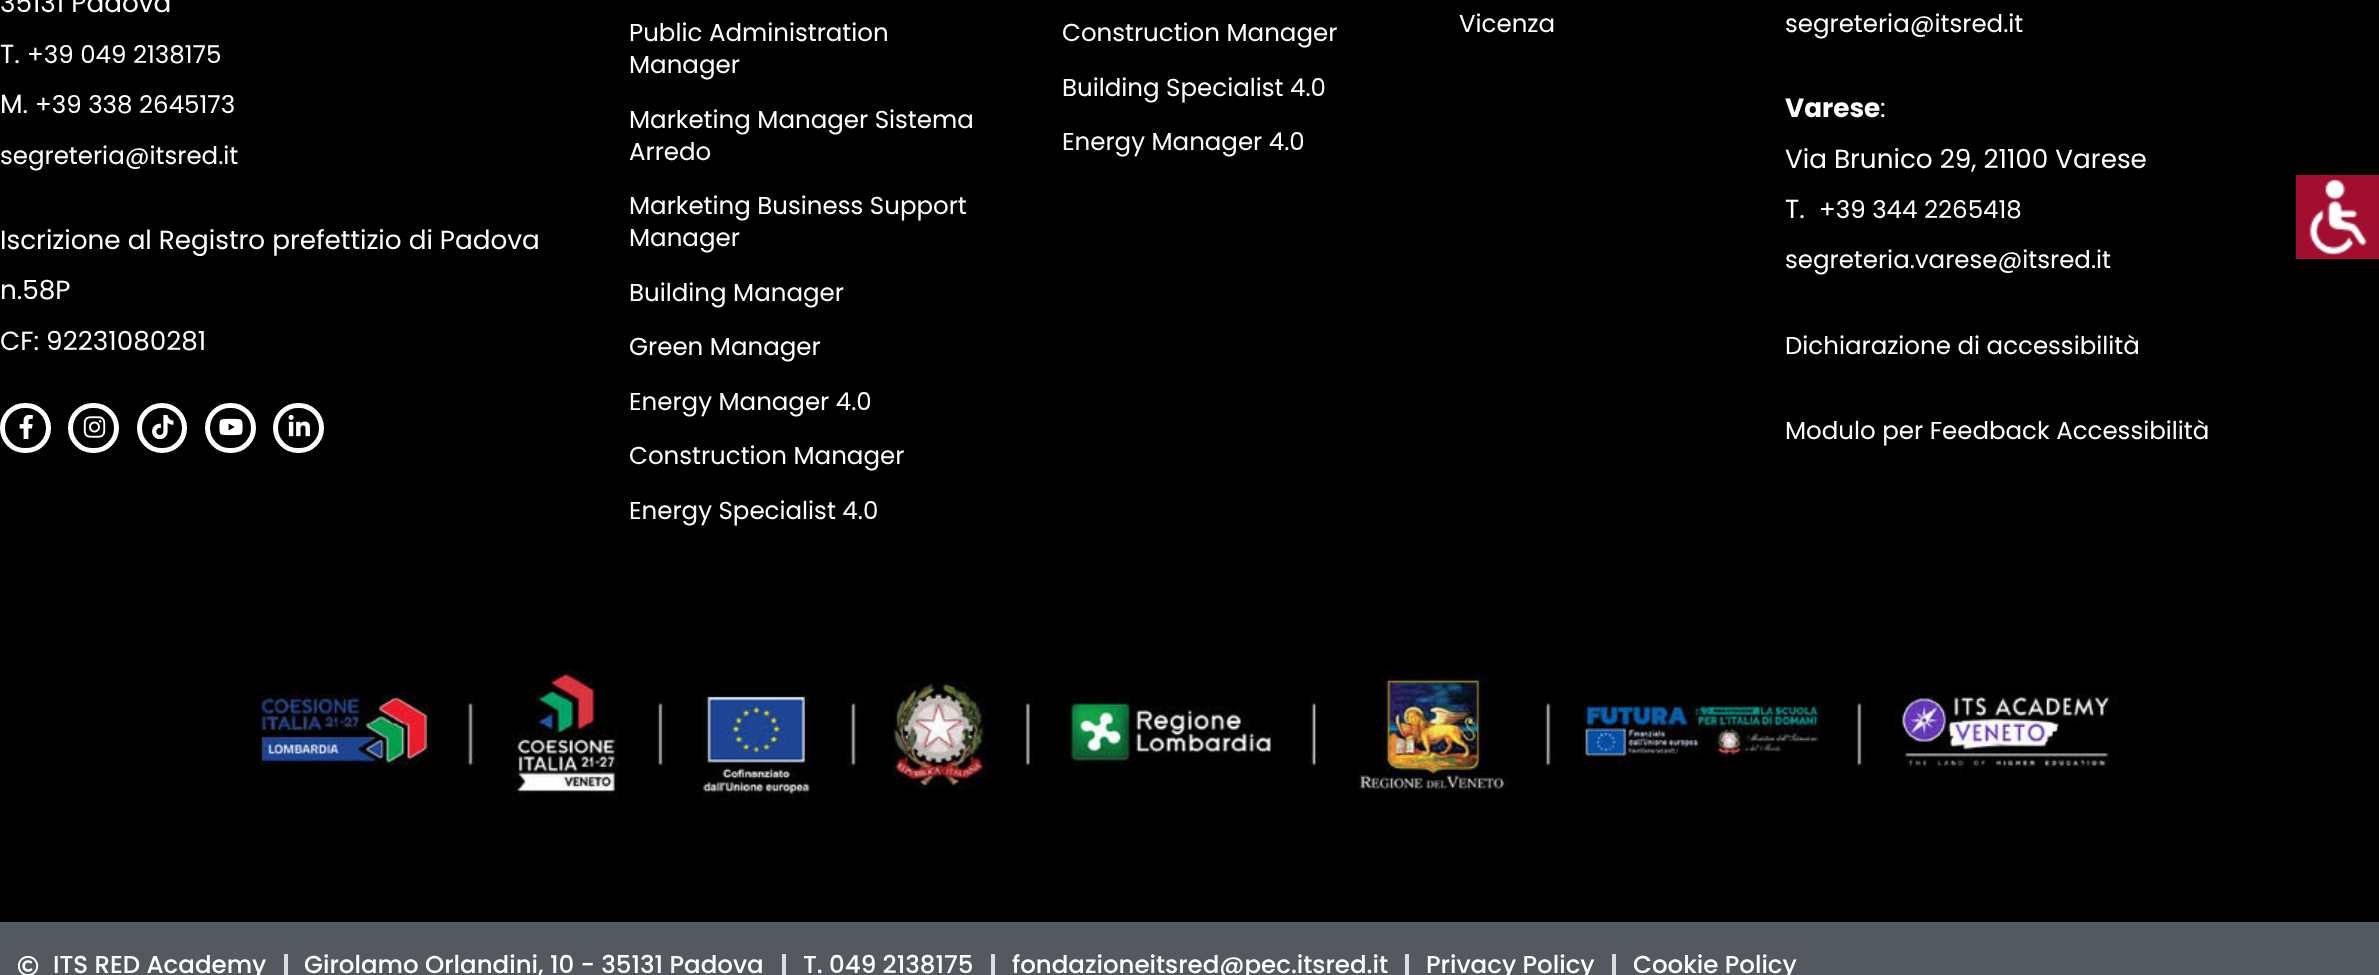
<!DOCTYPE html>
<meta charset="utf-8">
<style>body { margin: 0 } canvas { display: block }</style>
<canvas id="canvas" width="2379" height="975"></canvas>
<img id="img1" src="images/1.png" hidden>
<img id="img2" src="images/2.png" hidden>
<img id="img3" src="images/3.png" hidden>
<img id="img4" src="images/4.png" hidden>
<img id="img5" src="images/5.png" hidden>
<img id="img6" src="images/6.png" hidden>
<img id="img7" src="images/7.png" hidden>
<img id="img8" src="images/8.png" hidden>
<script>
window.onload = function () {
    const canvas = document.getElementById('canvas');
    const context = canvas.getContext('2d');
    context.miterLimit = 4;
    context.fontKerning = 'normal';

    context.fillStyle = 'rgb(0, 0, 0)';
    context.fillRect(0, 0, 2379, 975);
    context.beginPath();
    context.roundRect(2.5, 405.5, 46, 45, 22.5);
    context.strokeStyle = 'rgb(255, 255, 255)';
    context.lineWidth = 5;
    context.stroke();
    context.drawImage(document.getElementById('img1'), 19, 415, 14, 24);
    context.beginPath();
    context.roundRect(70.5, 405.5, 46, 45, 22.5);
    context.stroke();
    context.drawImage(document.getElementById('img2'), 83, 416, 23, 22);
    context.beginPath();
    context.arc(162, 428, 22.5, 0, 2 * Math.PI);
    context.stroke();
    context.drawImage(document.getElementById('img3'), 152, 415, 22, 24);
    context.beginPath();
    context.roundRect(207.5, 405.5, 46, 45, 22.5);
    context.stroke();
    context.drawImage(document.getElementById('img4'), 219, 418, 24, 18);
    context.beginPath();
    context.roundRect(275.5, 405.5, 46, 45, 22.5);
    context.stroke();
    context.drawImage(document.getElementById('img5'), 288, 415, 22, 22);
    context.drawImage(document.getElementById('img6'), 261, 670, 1857, 131);
    context.fillStyle = 'rgb(84, 89, 95)';
    context.fillRect(0, 922, 2379, 53);
    context.drawImage(document.getElementById('img7'), 18, 956, 21, 19);
    context.fillStyle = 'rgb(221, 221, 221)';
    context.fillRect(284, 954, 4, 21);
    context.fillRect(782, 954, 4, 21);
    context.fillRect(991, 954, 4, 21);
    context.fillRect(1405, 954, 4, 21);
    context.fillRect(1612, 954, 4, 21);
    context.drawImage(document.getElementById('img8'), 2296, 175, 83, 84);
    context.font = '26.25px Poppins';
    context.fillStyle = 'rgb(255, 255, 255)';
    context.fillText('35131 Padova', 0, 12);
    context.fillText('T.', 0, 63);
    context.font = '24.5px Poppins';
    context.fillText('+39 049 2138175', 27, 63);
    context.font = '26.25px Poppins';
    context.fillText('M.', 0, 113);
    context.font = '24.5px Poppins';
    context.fillText('+39 338 2645173', 35, 113);
    context.fillText('segreteria@itsred.it', 0, 164);
    context.font = '26.25px Poppins';
    context.fillText('Iscrizione al Registro prefettizio di Padova', 0, 249);
    context.fillText('n.58P', 0, 299);
    context.fillText('CF: 92231080281', 0, 350);
    context.font = '24.5px Poppins';
    context.fillText('Public Administration', 629, 41);
    context.fillText('Manager', 629, 73);
    context.fillText('Marketing Manager Sistema', 629, 128);
    context.fillText('Arredo', 629, 160);
    context.fillText('Marketing Business Support', 629, 214);
    context.fillText('Manager', 629, 246);
    context.fillText('Building Manager', 629, 301);
    context.fillText('Green Manager', 629, 355);
    context.fillText('Energy Manager 4.0', 629, 410);
    context.fillText('Construction Manager', 629, 464);
    context.fillText('Energy Specialist 4.0', 629, 519);
    context.fillText('Construction Manager', 1062, 41);
    context.fillText('Building Specialist 4.0', 1062, 96);
    context.fillText('Energy Manager 4.0', 1062, 150);
    context.fillText('Vicenza', 1459, 32);
    context.fillText('segreteria@itsred.it', 1785, 32);
    context.font = 'bold 26.25px Poppins';
    context.fillText('Varese', 1785, 117);
    context.font = '26.25px Poppins';
    context.fillText(':', 1880, 117);
    context.fillText('Via Brunico 29, 21100 Varese', 1785, 168);
    context.fillText('T.', 1785, 218);
    context.font = '24.5px Poppins';
    context.fillText('+39 344 2265418', 1819, 218);
    context.fillText('segreteria.varese@itsred.it', 1785, 268);
    context.fillText('Dichiarazione di accessibilità', 1785, 354);
    context.fillText('Modulo per Feedback Accessibilità', 1785, 439);
    context.font = '500 24.5px Poppins';
    context.fillText('ITS RED Academy', 53, 973);
    context.fillText('Girolamo Orlandini, 10 - 35131 Padova', 304, 973);
    context.fillText('T. 049 2138175', 803, 973);
    context.fillText('fondazioneitsred@pec.itsred.it', 1012, 973);
    context.fillText('Privacy Policy', 1426, 973);
    context.fillText('Cookie Policy', 1633, 973);
};
</script>
